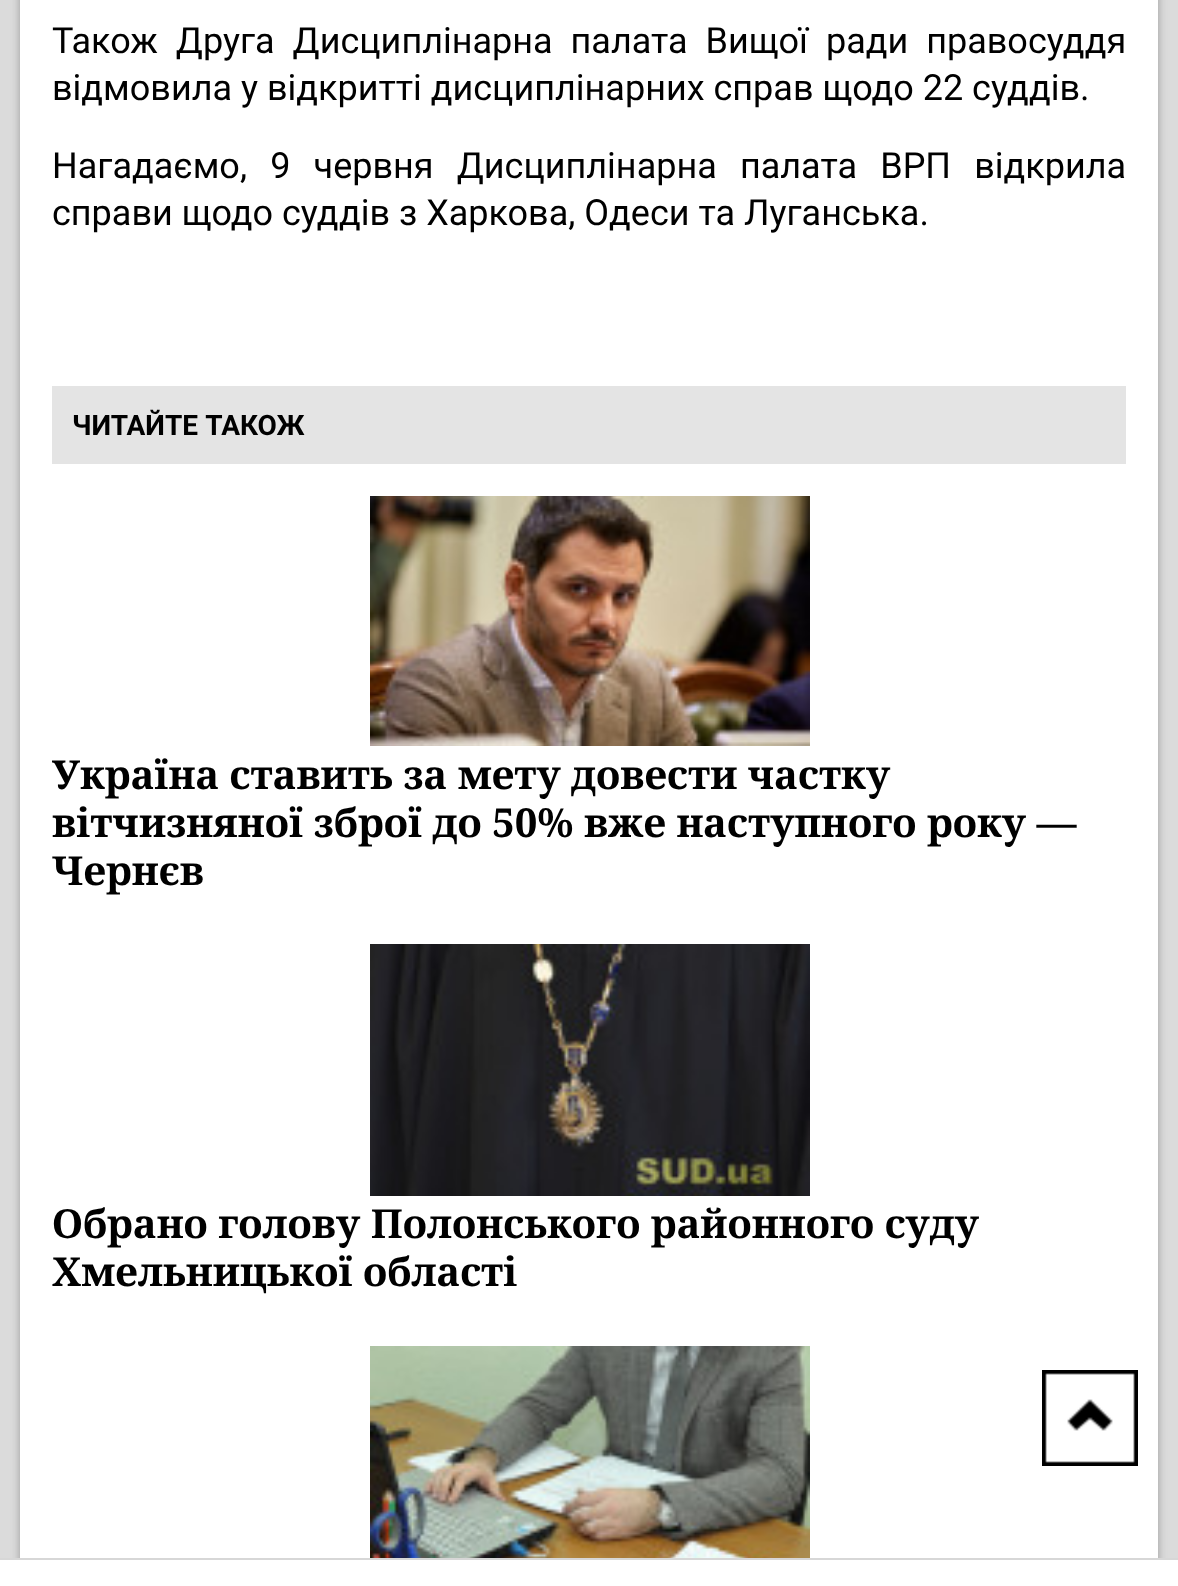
<!DOCTYPE html>
<meta charset="utf-8">
<style>body { margin: 0 } canvas { display: block }</style>
<canvas id="canvas" width="1178" height="1586"></canvas>
<img id="img1" src="images/1.png" hidden>
<img id="img2" src="images/2.png" hidden>
<img id="img3" src="images/3.png" hidden>
<img id="img4" src="images/4.png" hidden>
<script>
window.onload = function () {
    const canvas = document.getElementById('canvas');
    const context = canvas.getContext('2d');
    context.miterLimit = 4;
    context.fontKerning = 'normal';

    context.fillStyle = 'rgb(219, 219, 219)';
    context.fillRect(0, 0, 1178, 1586);
    context.fillStyle = 'rgba(0, 0, 0, 0.3)';
    context.filter = 'blur(4px)';
    context.beginPath();
    context.rect(20, -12, 1138, 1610);
    context.fill();
    context.filter = 'none';
    context.fillStyle = 'rgb(255, 255, 255)';
    context.fillRect(20, 0, 1138, 1558);
    context.fillStyle = 'rgb(228, 228, 228)';
    context.fillRect(52, 386, 1074, 78);
    context.drawImage(document.getElementById('img1'), 370, 496, 440, 250);
    context.drawImage(document.getElementById('img2'), 370, 944, 440, 252);
    context.drawImage(document.getElementById('img3'), 370, 1346, 440, 212);
    context.drawImage(document.getElementById('img4'), 1042, 1370, 96, 96);
    context.fillStyle = 'rgb(255, 255, 255)';
    context.fillRect(0, 1560, 1178, 26);
    context.fillStyle = 'rgb(215, 215, 215)';
    context.fillRect(0, 1558, 1178, 2);
    context.wordSpacing = '9px';
    context.font = '36px Roboto';
    context.fillStyle = 'rgb(0, 0, 0)';
    context.fillText('Також Друга Дисциплінарна палата Вищої ради правосуддя', 52, 53);
    context.wordSpacing = '0px';
    context.fillText('відмовила у відкритті дисциплінарних справ щодо 22 суддів.', 52, 100);
    context.wordSpacing = '14.25px';
    context.fillText('Нагадаємо, 9 червня Дисциплінарна палата ВРП відкрила', 52, 178);
    context.wordSpacing = '0px';
    context.fillText('справи щодо суддів з Харкова, Одеси та Луганська.', 52, 225);
    context.wordSpacing = '1px';
    context.font = 'bold 28px Roboto';
    context.fillText('ЧИТАЙТЕ ТАКОЖ', 72, 435);
    context.wordSpacing = '0px';
    context.font = 'bold 40px Noto Serif';
    context.fillText('Україна ставить за мету довести частку', 52, 789);
    context.fillText('вітчизняної зброї до 50% вже наступного року —', 52, 837);
    context.fillText('Чернєв', 52, 885);
    context.fillText('Обрано голову Полонського районного суду', 52, 1238);
    context.fillText('Хмельницької області', 52, 1286);
};
</script>
